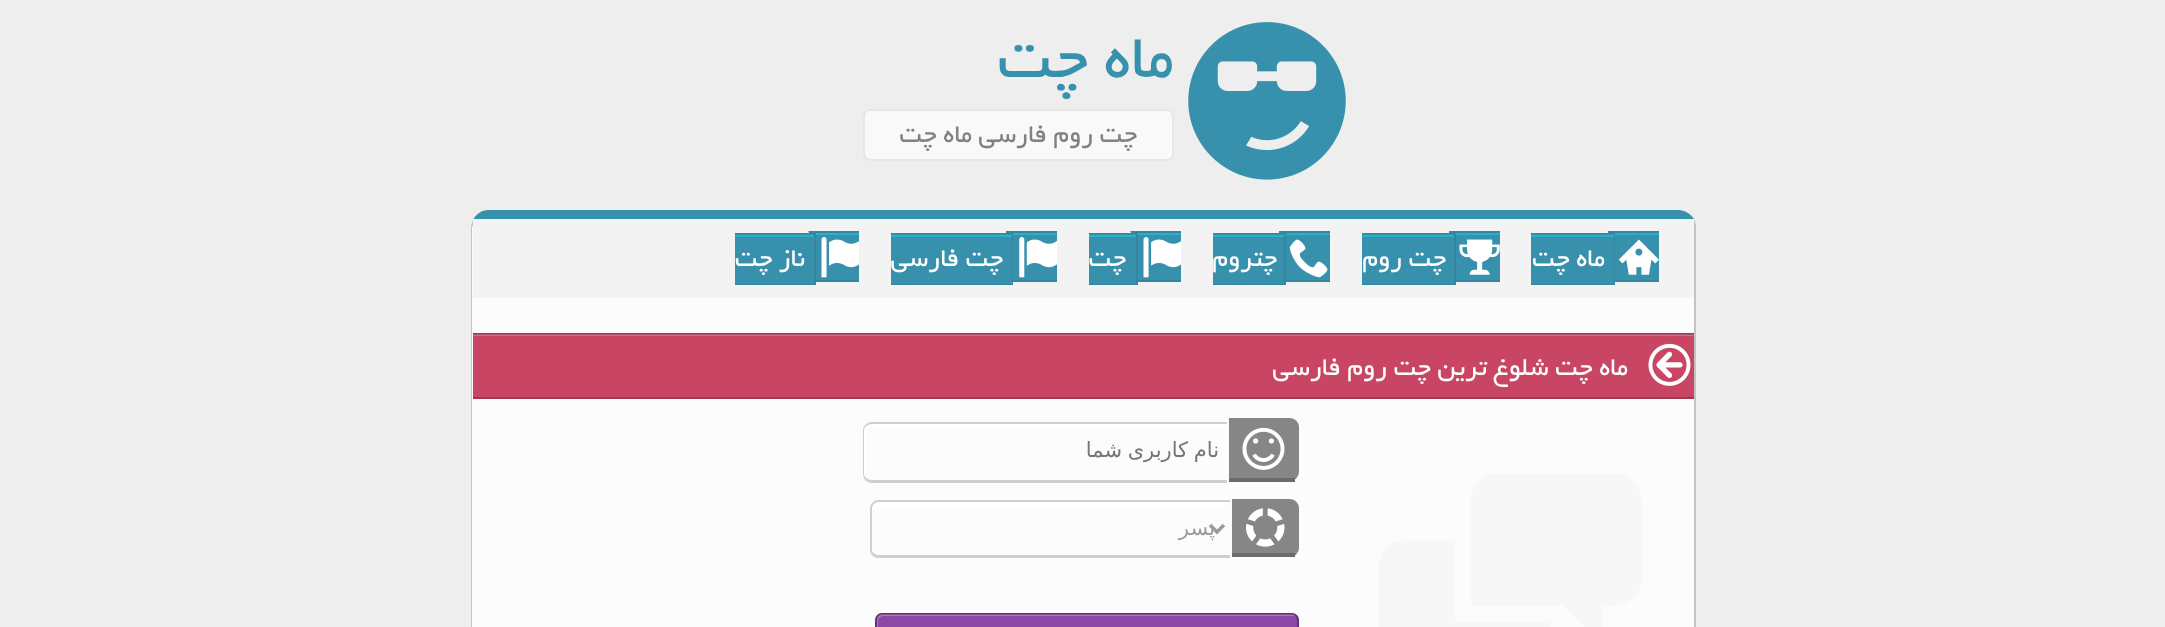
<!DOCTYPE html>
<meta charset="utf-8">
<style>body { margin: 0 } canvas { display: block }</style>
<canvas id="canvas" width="2165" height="627"></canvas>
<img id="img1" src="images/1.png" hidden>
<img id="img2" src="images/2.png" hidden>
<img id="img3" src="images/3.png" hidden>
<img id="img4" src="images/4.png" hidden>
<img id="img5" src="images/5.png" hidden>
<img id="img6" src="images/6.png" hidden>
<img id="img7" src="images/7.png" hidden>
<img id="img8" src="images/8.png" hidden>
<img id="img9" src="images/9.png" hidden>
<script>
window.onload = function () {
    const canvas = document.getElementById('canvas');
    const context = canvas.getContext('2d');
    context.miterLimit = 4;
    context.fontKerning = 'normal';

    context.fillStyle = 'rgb(238, 238, 238)';
    context.fillRect(0, 0, 2165, 627);
    context.drawImage(document.getElementById('img1'), 1188, 22, 158, 158);
    context.fillStyle = 'rgb(249, 249, 249)';
    context.beginPath();
    context.roundRect(864, 110, 309, 50, 6);
    context.fill();
    context.strokeStyle = 'rgb(231, 231, 231)';
    context.lineWidth = 2;
    context.stroke();
    context.fillStyle = 'rgb(252, 252, 252)';
    context.beginPath();
    context.moveTo(488, 219);
    context.lineTo(1678, 219);
    context.bezierCurveTo(1687, 219, 1694, 223, 1694, 228);
    context.lineTo(1694, 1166);
    context.bezierCurveTo(1694, 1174, 1687, 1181, 1678, 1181);
    context.lineTo(488, 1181);
    context.bezierCurveTo(480, 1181, 472, 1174, 472, 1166);
    context.lineTo(472, 228);
    context.bezierCurveTo(472, 223, 480, 219, 488, 219);
    context.closePath();
    context.fill();
    context.fillStyle = 'rgb(55, 145, 173)';
    context.beginPath();
    context.moveTo(488, 210);
    context.bezierCurveTo(482, 210, 476, 214, 473, 220);
    context.lineTo(474, 224);
    context.bezierCurveTo(476, 221, 482, 219, 488, 219);
    context.lineTo(1678, 219);
    context.bezierCurveTo(1685, 219, 1690, 221, 1693, 225);
    context.lineTo(1694, 219);
    context.bezierCurveTo(1691, 214, 1685, 210, 1678, 210);
    context.closePath();
    context.fill();
    context.fillStyle = 'rgb(195, 195, 195)';
    context.beginPath();
    context.moveTo(1696, 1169);
    context.bezierCurveTo(1695, 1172, 1693, 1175, 1691, 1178);
    context.lineTo(1689, 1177);
    context.bezierCurveTo(1692, 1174, 1694, 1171, 1694, 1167);
    context.lineTo(1694, 228);
    context.lineTo(1693, 225);
    context.lineTo(1694, 219);
    context.lineTo(1696, 225);
    context.closePath();
    context.fill();
    context.beginPath();
    context.moveTo(473, 220);
    context.bezierCurveTo(472, 222, 471, 225, 471, 228);
    context.lineTo(471, 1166);
    context.bezierCurveTo(471, 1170, 473, 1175, 476, 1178);
    context.lineTo(477, 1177);
    context.bezierCurveTo(474, 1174, 472, 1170, 472, 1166);
    context.lineTo(472, 228);
    context.bezierCurveTo(472, 227, 473, 225, 474, 224);
    context.closePath();
    context.fill();
    context.fillStyle = 'rgb(243, 243, 243)';
    context.fillRect(473, 219, 1221, 79);
    context.fillStyle = 'rgb(55, 145, 173)';
    context.fillRect(1608, 231, 51, 49);
    context.fillStyle = 'rgb(37, 178, 200)';
    context.fillRect(1610, 233, 49, 2);
    context.fillStyle = 'rgb(51, 135, 161)';
    context.beginPath();
    context.moveTo(1608, 231);
    context.lineTo(1659, 231);
    context.lineTo(1659, 233);
    context.lineTo(1610, 233);
    context.closePath();
    context.moveTo(1659, 282);
    context.lineTo(1608, 282);
    context.lineTo(1610, 280);
    context.lineTo(1659, 280);
    context.closePath();
    context.fill();
    context.drawImage(document.getElementById('img2'), 1618, 239, 41, 36);
    context.fillStyle = 'rgba(0, 0, 0, 0.07)';
    context.beginPath();
    context.moveTo(1608, 282);
    context.lineTo(1608, 231);
    context.lineTo(1610, 233);
    context.lineTo(1610, 280);
    context.closePath();
    context.fill();
    context.fillStyle = 'rgb(55, 145, 173)';
    context.fillRect(1531, 233, 84, 52);
    context.fillStyle = 'rgb(37, 178, 200)';
    context.fillRect(1531, 235, 83, 2);
    context.fillStyle = 'rgb(51, 135, 161)';
    context.beginPath();
    context.moveTo(1531, 233);
    context.lineTo(1615, 233);
    context.lineTo(1614, 234);
    context.lineTo(1531, 234);
    context.closePath();
    context.fill();
    context.fillStyle = 'rgba(0, 0, 0, 0.07)';
    context.beginPath();
    context.moveTo(1615, 233);
    context.lineTo(1615, 285);
    context.lineTo(1614, 284);
    context.lineTo(1614, 234);
    context.closePath();
    context.fill();
    context.beginPath();
    context.moveTo(1615, 285);
    context.lineTo(1531, 285);
    context.lineTo(1531, 284);
    context.lineTo(1614, 284);
    context.closePath();
    context.fill();
    context.fillStyle = 'rgb(55, 145, 173)';
    context.fillRect(1449, 231, 51, 49);
    context.fillStyle = 'rgb(37, 178, 200)';
    context.fillRect(1451, 233, 49, 2);
    context.fillStyle = 'rgb(51, 135, 161)';
    context.beginPath();
    context.moveTo(1449, 231);
    context.lineTo(1500, 231);
    context.lineTo(1500, 233);
    context.lineTo(1451, 233);
    context.closePath();
    context.moveTo(1500, 282);
    context.lineTo(1449, 282);
    context.lineTo(1451, 280);
    context.lineTo(1500, 280);
    context.closePath();
    context.fill();
    context.drawImage(document.getElementById('img3'), 1459, 239, 41, 36);
    context.fillStyle = 'rgba(0, 0, 0, 0.07)';
    context.beginPath();
    context.moveTo(1449, 282);
    context.lineTo(1449, 231);
    context.lineTo(1451, 233);
    context.lineTo(1451, 280);
    context.closePath();
    context.fill();
    context.fillStyle = 'rgb(55, 145, 173)';
    context.fillRect(1362, 233, 94, 52);
    context.fillStyle = 'rgb(37, 178, 200)';
    context.fillRect(1362, 235, 92, 2);
    context.fillStyle = 'rgb(51, 135, 161)';
    context.beginPath();
    context.moveTo(1362, 233);
    context.lineTo(1456, 233);
    context.lineTo(1454, 234);
    context.lineTo(1362, 234);
    context.closePath();
    context.fill();
    context.fillStyle = 'rgba(0, 0, 0, 0.07)';
    context.beginPath();
    context.moveTo(1456, 233);
    context.lineTo(1456, 285);
    context.lineTo(1454, 284);
    context.lineTo(1454, 234);
    context.closePath();
    context.fill();
    context.beginPath();
    context.moveTo(1456, 285);
    context.lineTo(1362, 285);
    context.lineTo(1362, 284);
    context.lineTo(1454, 284);
    context.closePath();
    context.fill();
    context.fillStyle = 'rgb(55, 145, 173)';
    context.fillRect(1279, 231, 51, 49);
    context.fillStyle = 'rgb(37, 178, 200)';
    context.fillRect(1281, 233, 49, 2);
    context.fillStyle = 'rgb(51, 135, 161)';
    context.beginPath();
    context.moveTo(1279, 231);
    context.lineTo(1330, 231);
    context.lineTo(1330, 233);
    context.lineTo(1281, 233);
    context.closePath();
    context.moveTo(1330, 282);
    context.lineTo(1279, 282);
    context.lineTo(1281, 280);
    context.lineTo(1330, 280);
    context.closePath();
    context.fill();
    context.drawImage(document.getElementById('img4'), 1289, 239, 39, 39);
    context.fillStyle = 'rgba(0, 0, 0, 0.07)';
    context.beginPath();
    context.moveTo(1279, 282);
    context.lineTo(1279, 231);
    context.lineTo(1281, 233);
    context.lineTo(1281, 280);
    context.closePath();
    context.fill();
    context.fillStyle = 'rgb(55, 145, 173)';
    context.fillRect(1213, 233, 73, 52);
    context.fillStyle = 'rgb(37, 178, 200)';
    context.fillRect(1213, 235, 72, 2);
    context.fillStyle = 'rgb(51, 135, 161)';
    context.beginPath();
    context.moveTo(1213, 233);
    context.lineTo(1286, 233);
    context.lineTo(1284, 234);
    context.lineTo(1213, 234);
    context.closePath();
    context.fill();
    context.fillStyle = 'rgba(0, 0, 0, 0.07)';
    context.beginPath();
    context.moveTo(1286, 233);
    context.lineTo(1286, 285);
    context.lineTo(1284, 284);
    context.lineTo(1284, 234);
    context.closePath();
    context.fill();
    context.beginPath();
    context.moveTo(1286, 285);
    context.lineTo(1213, 285);
    context.lineTo(1213, 284);
    context.lineTo(1284, 284);
    context.closePath();
    context.fill();
    context.fillStyle = 'rgb(55, 145, 173)';
    context.fillRect(1131, 232, 50, 50);
    context.drawImage(document.getElementById('img5'), 1143, 237, 38, 41);
    context.fillStyle = 'rgb(37, 178, 200)';
    context.fillRect(1132, 233, 49, 2);
    context.fillStyle = 'rgb(51, 135, 161)';
    context.beginPath();
    context.moveTo(1130, 231);
    context.lineTo(1181, 231);
    context.lineTo(1181, 233);
    context.lineTo(1132, 233);
    context.closePath();
    context.fill();
    context.fillStyle = 'rgba(0, 0, 0, 0.07)';
    context.beginPath();
    context.moveTo(1181, 282);
    context.lineTo(1130, 282);
    context.lineTo(1132, 280);
    context.lineTo(1181, 280);
    context.closePath();
    context.fill();
    context.beginPath();
    context.moveTo(1130, 282);
    context.lineTo(1130, 231);
    context.lineTo(1132, 233);
    context.lineTo(1132, 280);
    context.closePath();
    context.fill();
    context.fillStyle = 'rgb(55, 145, 173)';
    context.fillRect(1089, 233, 49, 52);
    context.fillStyle = 'rgb(37, 178, 200)';
    context.fillRect(1089, 235, 47, 2);
    context.fillStyle = 'rgba(0, 0, 0, 0.07)';
    context.beginPath();
    context.moveTo(1088, 233);
    context.lineTo(1138, 233);
    context.lineTo(1136, 234);
    context.lineTo(1088, 234);
    context.closePath();
    context.fill();
    context.beginPath();
    context.moveTo(1138, 233);
    context.lineTo(1138, 285);
    context.lineTo(1136, 284);
    context.lineTo(1136, 234);
    context.closePath();
    context.fill();
    context.beginPath();
    context.moveTo(1138, 285);
    context.lineTo(1088, 285);
    context.lineTo(1088, 284);
    context.lineTo(1136, 284);
    context.closePath();
    context.fill();
    context.fillStyle = 'rgb(55, 145, 173)';
    context.fillRect(1006, 231, 51, 49);
    context.fillStyle = 'rgb(37, 178, 200)';
    context.fillRect(1008, 233, 49, 2);
    context.fillStyle = 'rgb(51, 135, 161)';
    context.beginPath();
    context.moveTo(1006, 231);
    context.lineTo(1057, 231);
    context.lineTo(1057, 233);
    context.lineTo(1008, 233);
    context.closePath();
    context.moveTo(1057, 282);
    context.lineTo(1006, 282);
    context.lineTo(1008, 280);
    context.lineTo(1057, 280);
    context.closePath();
    context.fill();
    context.drawImage(document.getElementById('img6'), 1019, 237, 38, 41);
    context.fillStyle = 'rgba(0, 0, 0, 0.07)';
    context.beginPath();
    context.moveTo(1006, 282);
    context.lineTo(1006, 231);
    context.lineTo(1008, 233);
    context.lineTo(1008, 280);
    context.closePath();
    context.fill();
    context.fillStyle = 'rgb(55, 145, 173)';
    context.fillRect(891, 233, 122, 52);
    context.fillStyle = 'rgb(37, 178, 200)';
    context.fillRect(891, 235, 121, 2);
    context.fillStyle = 'rgb(51, 135, 161)';
    context.beginPath();
    context.moveTo(891, 233);
    context.lineTo(1013, 233);
    context.lineTo(1012, 234);
    context.lineTo(891, 234);
    context.closePath();
    context.fill();
    context.fillStyle = 'rgba(0, 0, 0, 0.07)';
    context.beginPath();
    context.moveTo(1013, 233);
    context.lineTo(1013, 285);
    context.lineTo(1012, 284);
    context.lineTo(1012, 234);
    context.closePath();
    context.fill();
    context.beginPath();
    context.moveTo(1013, 285);
    context.lineTo(891, 285);
    context.lineTo(891, 284);
    context.lineTo(1012, 284);
    context.closePath();
    context.fill();
    context.fillStyle = 'rgb(55, 145, 173)';
    context.fillRect(809, 232, 50, 50);
    context.drawImage(document.getElementById('img5'), 821, 237, 38, 41);
    context.fillStyle = 'rgb(37, 178, 200)';
    context.fillRect(810, 233, 49, 2);
    context.fillStyle = 'rgb(51, 135, 161)';
    context.beginPath();
    context.moveTo(808, 231);
    context.lineTo(859, 231);
    context.lineTo(859, 233);
    context.lineTo(810, 233);
    context.closePath();
    context.fill();
    context.fillStyle = 'rgba(0, 0, 0, 0.07)';
    context.beginPath();
    context.moveTo(859, 282);
    context.lineTo(808, 282);
    context.lineTo(810, 280);
    context.lineTo(859, 280);
    context.closePath();
    context.fill();
    context.beginPath();
    context.moveTo(808, 282);
    context.lineTo(808, 231);
    context.lineTo(810, 233);
    context.lineTo(810, 280);
    context.closePath();
    context.fill();
    context.fillStyle = 'rgb(55, 145, 173)';
    context.fillRect(735, 233, 81, 52);
    context.fillStyle = 'rgb(37, 178, 200)';
    context.fillRect(735, 235, 79, 2);
    context.fillStyle = 'rgb(51, 135, 161)';
    context.beginPath();
    context.moveTo(735, 233);
    context.lineTo(816, 233);
    context.lineTo(814, 234);
    context.lineTo(735, 234);
    context.closePath();
    context.fill();
    context.fillStyle = 'rgba(0, 0, 0, 0.07)';
    context.beginPath();
    context.moveTo(816, 233);
    context.lineTo(816, 285);
    context.lineTo(814, 284);
    context.lineTo(814, 234);
    context.closePath();
    context.fill();
    context.beginPath();
    context.moveTo(816, 285);
    context.lineTo(735, 285);
    context.lineTo(735, 284);
    context.lineTo(814, 284);
    context.closePath();
    context.fill();
    context.fillStyle = 'rgb(201, 69, 100)';
    context.fillRect(473, 333, 1221, 64);
    context.fillStyle = 'rgb(219, 106, 135)';
    context.fillRect(473, 334, 1221, 2);
    context.fillStyle = 'rgba(0, 0, 0, 0.2)';
    context.fillRect(473, 333, 1221, 2);
    context.fillStyle = 'rgb(161, 55, 80)';
    context.fillRect(473, 397, 1221, 2);
    context.drawImage(document.getElementById('img7'), 1648, 343, 43, 43);
    context.fillStyle = 'rgb(247, 247, 247)';
    context.beginPath();
    context.moveTo(1455, 621);
    context.lineTo(1455, 540);
    context.lineTo(1405, 540);
    context.bezierCurveTo(1391, 540, 1379, 552, 1379, 566);
    context.lineTo(1379, 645);
    context.bezierCurveTo(1379, 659, 1391, 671, 1405, 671);
    context.lineTo(1418, 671);
    context.lineTo(1418, 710);
    context.lineTo(1458, 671);
    context.lineTo(1524, 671);
    context.bezierCurveTo(1538, 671, 1550, 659, 1550, 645);
    context.lineTo(1550, 621);
    context.lineTo(1547, 621);
    context.closePath();
    context.moveTo(1615, 474);
    context.lineTo(1497, 474);
    context.bezierCurveTo(1483, 474, 1471, 486, 1471, 500);
    context.lineTo(1471, 605);
    context.lineTo(1563, 605);
    context.lineTo(1602, 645);
    context.lineTo(1602, 605);
    context.lineTo(1615, 605);
    context.bezierCurveTo(1630, 605, 1642, 594, 1642, 579);
    context.lineTo(1642, 500);
    context.bezierCurveTo(1642, 486, 1630, 474, 1615, 474);
    context.closePath();
    context.fill();
    context.fillStyle = 'rgb(134, 134, 134)';
    context.beginPath();
    context.roundRect(1229, 418, 70, 63, [0, 9, 9, 0]);
    context.fill();
    context.drawImage(document.getElementById('img8'), 1242, 427, 43, 43);
    context.fillStyle = 'rgb(255, 255, 255)';
    context.beginPath();
    context.moveTo(873, 427);
    context.lineTo(1227, 427);
    context.lineTo(1227, 424);
    context.lineTo(872, 424);
    context.bezierCurveTo(868, 424, 864, 427, 864, 430);
    context.lineTo(864, 474);
    context.bezierCurveTo(864, 475, 865, 477, 866, 477);
    context.lineTo(866, 434);
    context.bezierCurveTo(866, 430, 869, 427, 873, 427);
    context.closePath();
    context.fill();
    context.fillStyle = 'rgb(207, 207, 207)';
    context.beginPath();
    context.moveTo(872, 422);
    context.lineTo(1227, 422);
    context.lineTo(1227, 483);
    context.lineTo(872, 483);
    context.bezierCurveTo(867, 483, 863, 479, 863, 474);
    context.lineTo(863, 430);
    context.bezierCurveTo(863, 426, 867, 422, 872, 422);
    context.closePath();
    context.moveTo(872, 424);
    context.lineTo(1227, 424);
    context.lineTo(1227, 480);
    context.lineTo(872, 480);
    context.bezierCurveTo(868, 480, 864, 477, 864, 474);
    context.lineTo(864, 430);
    context.bezierCurveTo(864, 427, 868, 424, 872, 424);
    context.closePath();
    context.fill('evenodd');
    context.fillStyle = 'rgb(107, 107, 107)';
    context.fillRect(1229, 478, 66, 4);
    context.fillStyle = 'rgb(134, 134, 134)';
    context.beginPath();
    context.roundRect(1232, 499, 67, 58, [0, 9, 9, 0]);
    context.fill();
    context.drawImage(document.getElementById('img9'), 1246, 508, 39, 39);
    context.fillStyle = 'rgb(255, 255, 255)';
    context.beginPath();
    context.moveTo(880, 506);
    context.lineTo(1230, 506);
    context.lineTo(1230, 502);
    context.lineTo(878, 502);
    context.bezierCurveTo(875, 502, 872, 505, 872, 509);
    context.lineTo(872, 550);
    context.bezierCurveTo(872, 551, 872, 552, 873, 553);
    context.lineTo(873, 513);
    context.bezierCurveTo(873, 509, 876, 506, 880, 506);
    context.closePath();
    context.fill();
    context.fillStyle = 'rgb(207, 207, 207)';
    context.beginPath();
    context.moveTo(878, 500);
    context.lineTo(1230, 500);
    context.lineTo(1230, 558);
    context.lineTo(878, 558);
    context.bezierCurveTo(874, 558, 870, 554, 870, 550);
    context.lineTo(870, 509);
    context.bezierCurveTo(870, 504, 874, 500, 878, 500);
    context.closePath();
    context.moveTo(878, 502);
    context.lineTo(1230, 502);
    context.lineTo(1230, 555);
    context.lineTo(878, 555);
    context.bezierCurveTo(875, 555, 872, 552, 872, 550);
    context.lineTo(872, 509);
    context.bezierCurveTo(872, 505, 875, 502, 878, 502);
    context.closePath();
    context.fill('evenodd');
    context.beginPath();
    context.moveTo(1210, 525);
    context.lineTo(1217, 532);
    context.lineTo(1224, 525);
    context.strokeStyle = 'rgb(155, 155, 155)';
    context.lineWidth = 3.5;
    context.stroke();
    context.fillStyle = 'rgb(107, 107, 107)';
    context.fillRect(1232, 553, 63, 4);
    context.fillStyle = 'rgb(140, 72, 167)';
    context.beginPath();
    context.roundRect(875, 613, 424, 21, 7);
    context.fill();
    context.fillStyle = 'rgb(180, 111, 203)';
    context.beginPath();
    context.moveTo(884, 616);
    context.lineTo(1293, 616);
    context.lineTo(1296, 617);
    context.bezierCurveTo(1295, 615, 1293, 614, 1292, 614);
    context.lineTo(882, 614);
    context.bezierCurveTo(879, 614, 877, 617, 877, 620);
    context.lineTo(877, 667);
    context.bezierCurveTo(877, 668, 877, 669, 878, 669);
    context.lineTo(878, 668);
    context.lineTo(878, 621);
    context.bezierCurveTo(878, 618, 881, 616, 884, 616);
    context.closePath();
    context.fill();
    context.beginPath();
    context.roundRect(876, 614, 422, 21, 6);
    context.strokeStyle = 'rgba(0, 0, 0, 0.3)';
    context.lineWidth = 2;
    context.stroke();
    context.direction = 'rtl';
    context.font = '68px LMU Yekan';
    context.fillStyle = 'rgb(55, 145, 173)';
    context.fillText('ماه چت', 1174, 77);
    context.font = '28px LMU Yekan';
    context.fillStyle = 'rgb(129, 129, 129)';
    context.fillText('چت روم فارسی ماه چت', 1137, 142);
    context.fillStyle = 'rgb(255, 255, 255)';
    context.fillText('ماه چت', 1605, 266);
    context.fillText('چت روم', 1446, 266);
    context.fillText('چتروم', 1277, 266);
    context.fillText('چت', 1126, 266);
    context.fillText('چت فارسی', 1003, 266);
    context.fillText('ناز چت', 805, 266);
    context.fillText('ماه چت شلوغ ترین چت روم فارسی', 1628, 375);
    context.wordSpacing = '-1px';
    context.font = '21px DejaVu Sans';
    context.fillStyle = 'rgb(117, 117, 117)';
    context.fillText('نام کاربری شما', 1219, 457);
    context.wordSpacing = '0px';
    context.fillStyle = 'rgb(155, 155, 155)';
    context.fillText('پسر', 1215, 535);
};
</script>
